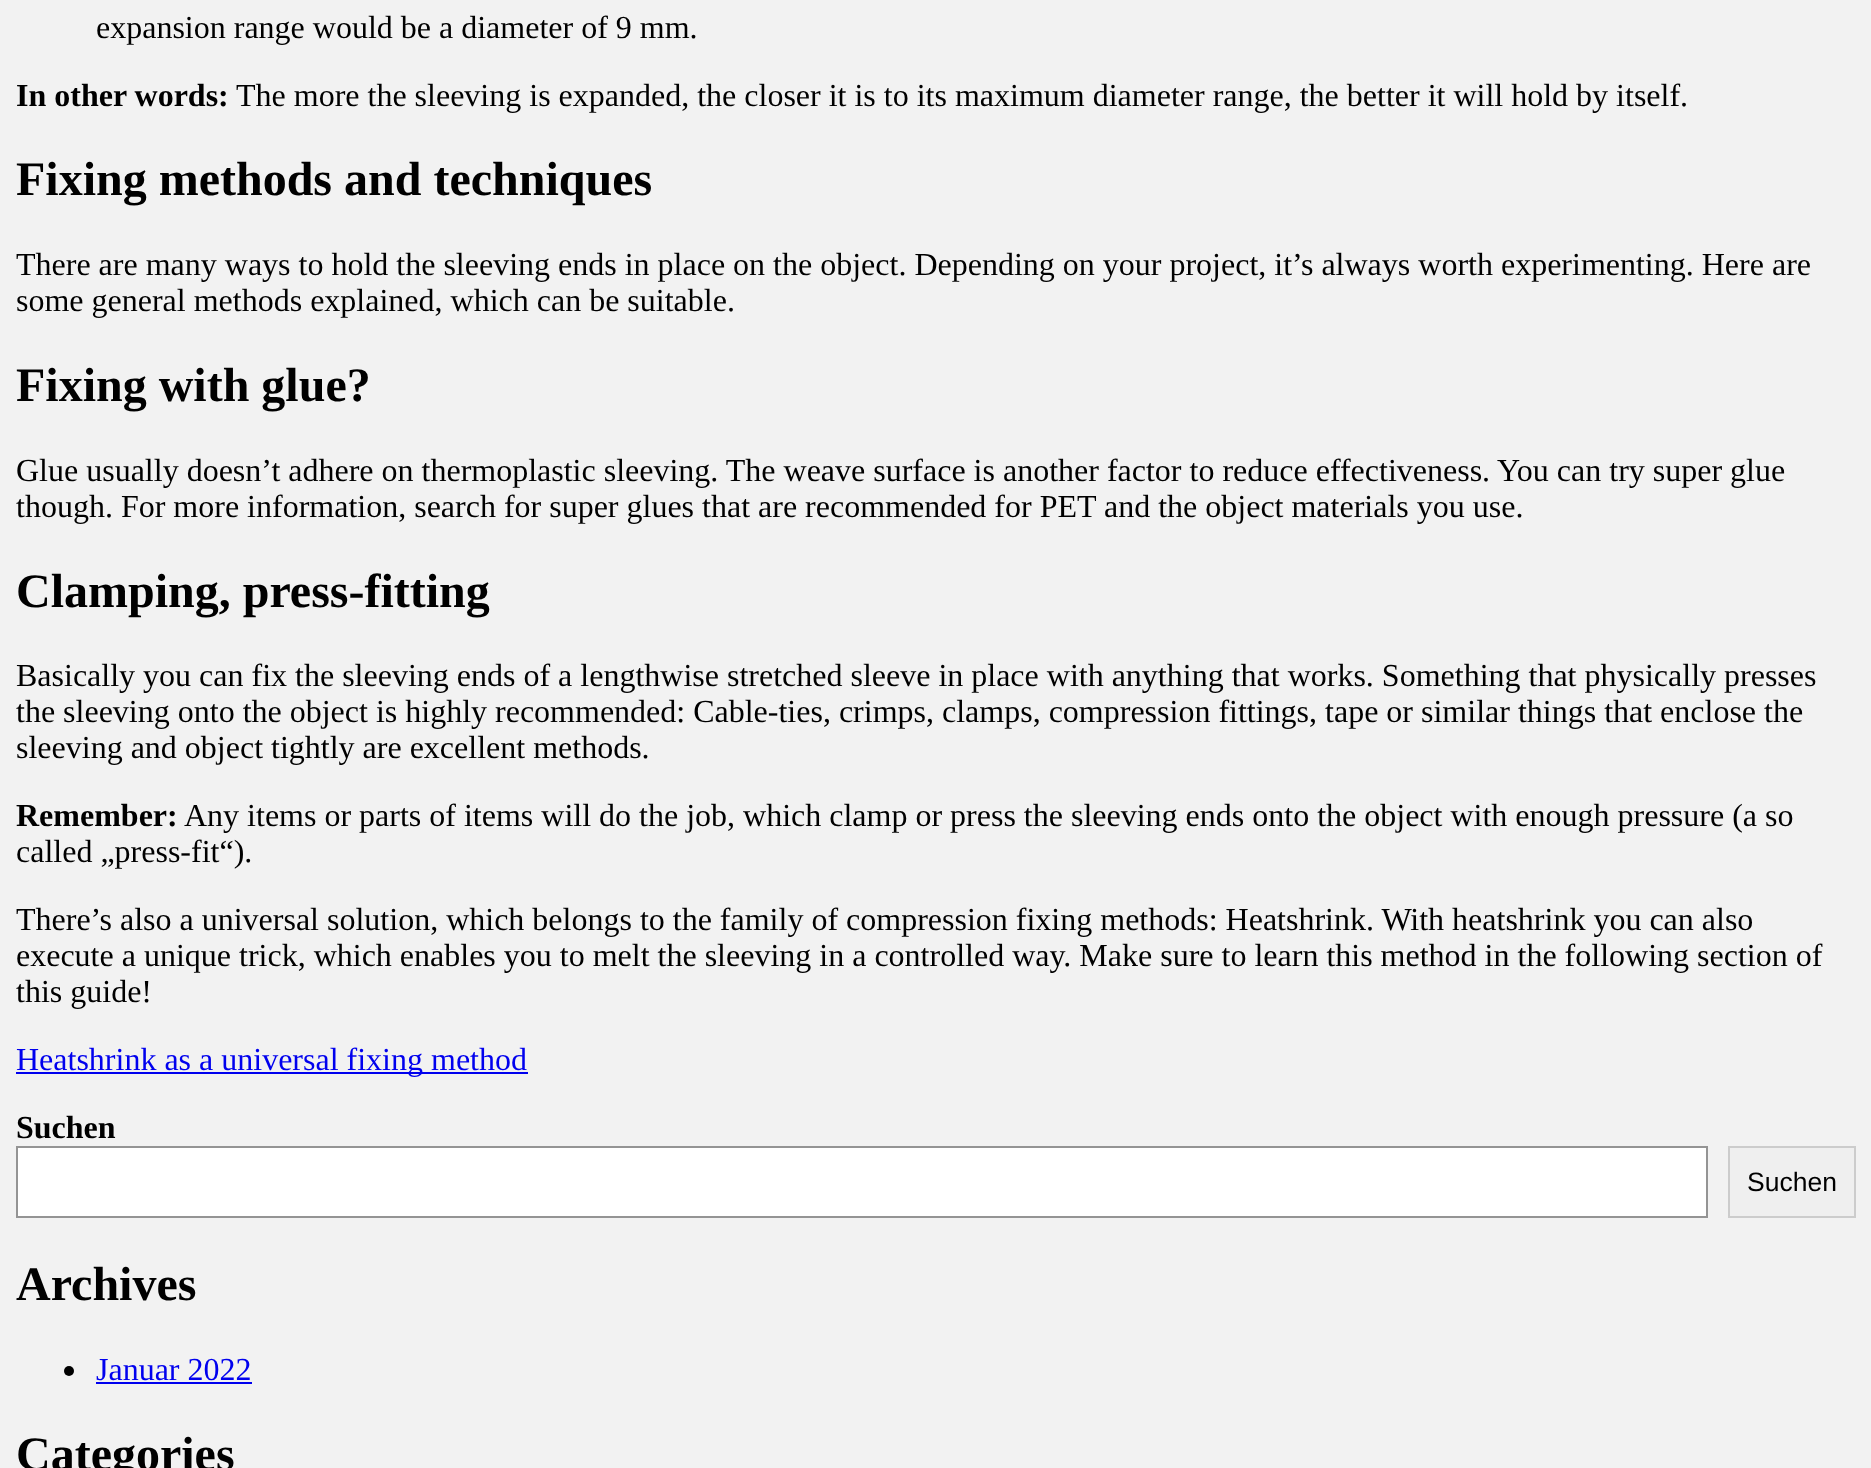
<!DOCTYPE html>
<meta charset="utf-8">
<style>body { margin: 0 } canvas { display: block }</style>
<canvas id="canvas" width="1871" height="1468"></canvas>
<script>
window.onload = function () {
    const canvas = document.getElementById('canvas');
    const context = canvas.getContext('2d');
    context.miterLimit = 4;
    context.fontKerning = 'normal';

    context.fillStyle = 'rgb(242, 242, 242)';
    context.fillRect(0, 0, 1871, 1468);
    context.fillStyle = 'rgb(0, 0, 238)';
    context.fillRect(16, 1072, 512, 2);
    context.fillStyle = 'rgb(255, 255, 255)';
    context.beginPath();
    context.rect(17, 1147, 1690, 70);
    context.fill();
    context.strokeStyle = 'rgb(148, 148, 148)';
    context.lineWidth = 2;
    context.stroke();
    context.fillStyle = 'rgb(239, 239, 239)';
    context.beginPath();
    context.rect(1729, 1147, 126, 70);
    context.fill();
    context.strokeStyle = 'rgb(204, 204, 204)';
    context.stroke();
    context.fillStyle = 'rgb(0, 0, 0)';
    context.beginPath();
    context.arc(69, 1371, 5, 0, 2 * Math.PI);
    context.fill();
    context.fillStyle = 'rgb(0, 0, 238)';
    context.fillRect(96, 1382, 156, 2);
    context.font = '32px Liberation Serif';
    context.fillStyle = 'rgb(0, 0, 0)';
    context.fillText('expansion range would be a diameter of 9 mm.', 96, 38);
    context.font = 'bold 32px Liberation Serif';
    context.fillText('In other words:', 16, 106);
    context.font = '32px Liberation Serif';
    context.fillText('The more the sleeving is expanded, the closer it is to its maximum diameter range, the better it will hold by itself.', 236, 106);
    context.font = 'bold 48px Liberation Serif';
    context.fillText('Fixing methods and techniques', 16, 195);
    context.font = '32px Liberation Serif';
    context.fillText('There are many ways to hold the sleeving ends in place on the object. Depending on your project, it’s always worth experimenting. Here are', 16, 275);
    context.fillText('some general methods explained, which can be suitable.', 16, 311);
    context.font = 'bold 48px Liberation Serif';
    context.fillText('Fixing with glue?', 16, 401);
    context.font = '32px Liberation Serif';
    context.fillText('Glue usually doesn’t adhere on thermoplastic sleeving. The weave surface is another factor to reduce effectiveness. You can try super glue', 16, 481);
    context.fillText('though. For more information, search for super glues that are recommended for PET and the object materials you use.', 16, 517);
    context.font = 'bold 48px Liberation Serif';
    context.fillText('Clamping, press-fitting', 16, 607);
    context.font = '32px Liberation Serif';
    context.fillText('Basically you can fix the sleeving ends of a lengthwise stretched sleeve in place with anything that works. Something that physically presses', 16, 686);
    context.fillText('the sleeving onto the object is highly recommended: Cable-ties, crimps, clamps, compression fittings, tape or similar things that enclose the', 16, 722);
    context.fillText('sleeving and object tightly are excellent methods.', 16, 758);
    context.font = 'bold 32px Liberation Serif';
    context.fillText('Remember:', 16, 826);
    context.font = '32px Liberation Serif';
    context.fillText('Any items or parts of items will do the job, which clamp or press the sleeving ends onto the object with enough pressure (a so', 184, 826);
    context.fillText('called „press-fit“).', 16, 862);
    context.fillText('There’s also a universal solution, which belongs to the family of compression fixing methods: Heatshrink. With heatshrink you can also', 16, 930);
    context.fillText('execute a unique trick, which enables you to melt the sleeving in a controlled way. Make sure to learn this method in the following section of', 16, 966);
    context.fillText('this guide!', 16, 1002);
    context.fillStyle = 'rgb(0, 0, 238)';
    context.fillText('Heatshrink as a universal fixing method', 16, 1070);
    context.font = 'bold 32px Liberation Serif';
    context.fillStyle = 'rgb(0, 0, 0)';
    context.fillText('Suchen', 16, 1138);
    context.font = '26.5px Liberation Sans';
    context.fillText('Suchen', 1747, 1191);
    context.font = 'bold 48px Liberation Serif';
    context.fillText('Archives', 16, 1300);
    context.font = '32px Liberation Serif';
    context.fillStyle = 'rgb(0, 0, 238)';
    context.fillText('Januar 2022', 96, 1380);
    context.font = 'bold 48px Liberation Serif';
    context.fillStyle = 'rgb(0, 0, 0)';
    context.fillText('Categories', 16, 1470);
};
</script>
